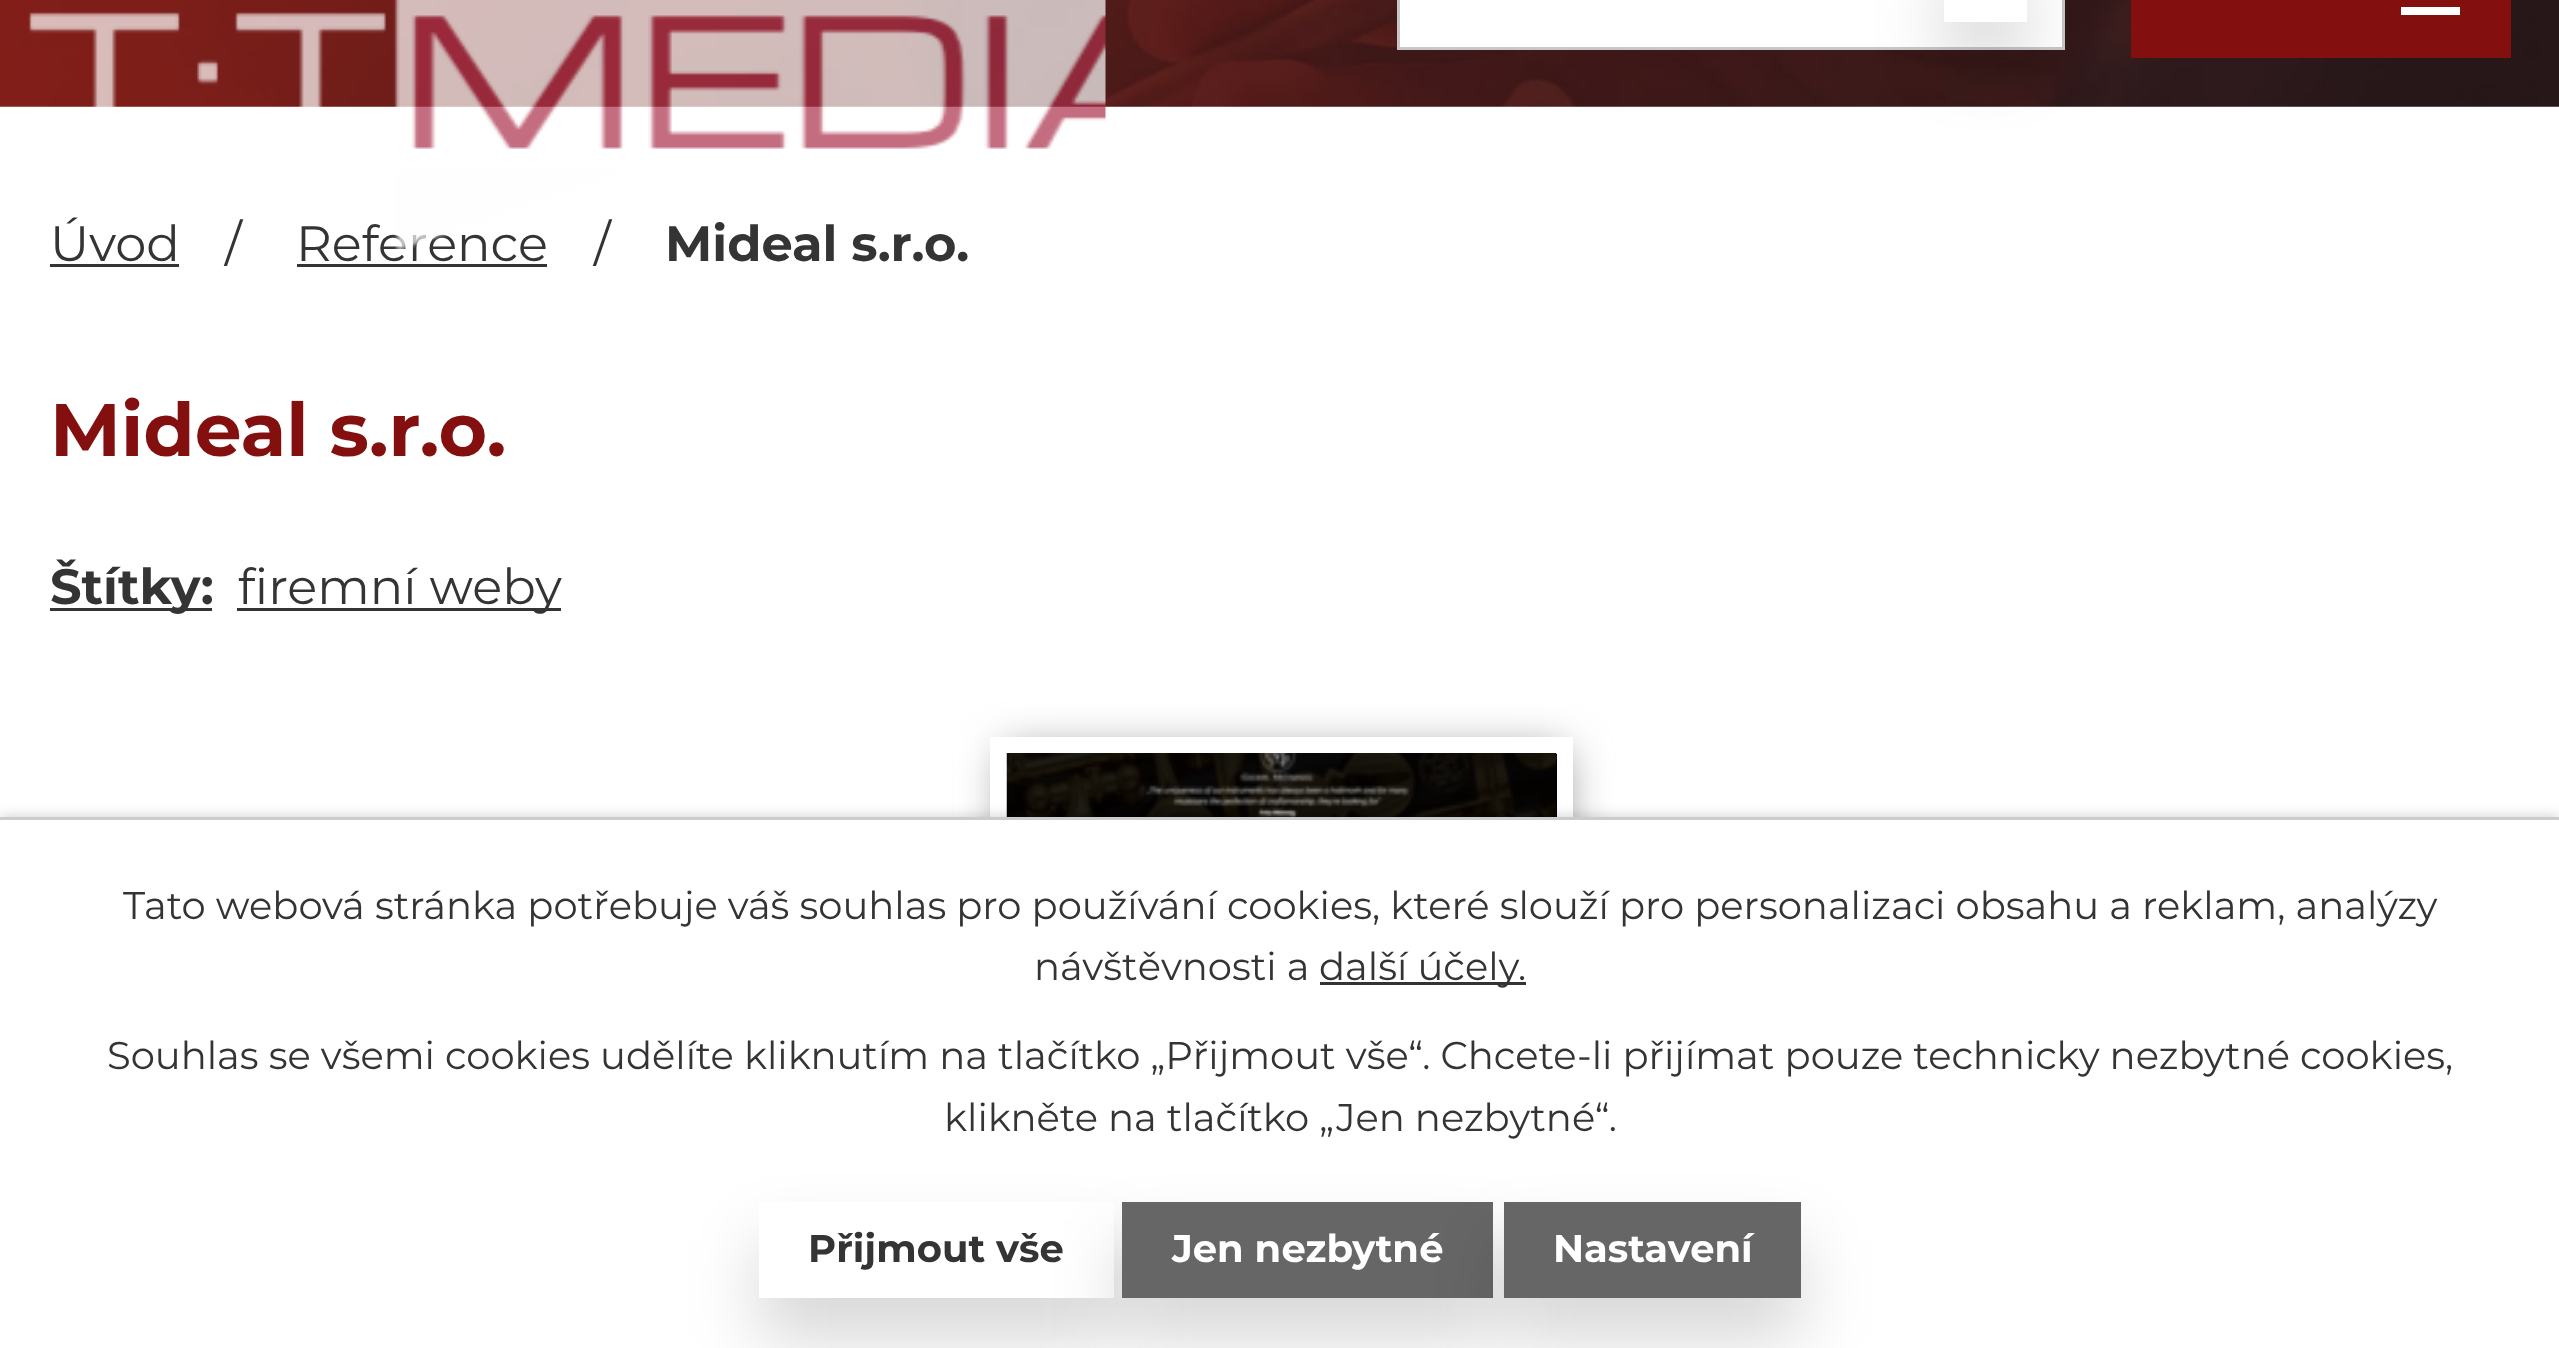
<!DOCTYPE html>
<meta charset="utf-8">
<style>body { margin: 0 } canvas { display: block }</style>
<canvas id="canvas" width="2559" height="1348"></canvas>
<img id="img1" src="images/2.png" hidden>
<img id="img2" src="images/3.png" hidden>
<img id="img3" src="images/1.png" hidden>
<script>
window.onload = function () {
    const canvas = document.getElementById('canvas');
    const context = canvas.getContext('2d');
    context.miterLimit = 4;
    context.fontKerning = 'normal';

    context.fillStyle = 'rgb(255, 255, 255)';
    context.fillRect(0, 0, 2559, 1348);
    context.drawImage(document.getElementById('img1'), 0, 0, 2559, 107);
    context.beginPath();
    context.rect(1398.5, -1.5, 665, 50);
    context.fill();
    context.strokeStyle = 'rgb(199, 199, 199)';
    context.lineWidth = 3;
    context.stroke();
    context.save();
    context.beginPath();
    context.moveTo(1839, 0);
    context.lineTo(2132, 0);
    context.lineTo(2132, 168);
    context.lineTo(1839, 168);
    context.closePath();
    context.moveTo(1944, -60);
    context.lineTo(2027, -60);
    context.lineTo(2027, 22);
    context.lineTo(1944, 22);
    context.closePath();
    context.clip('evenodd');
    context.fillStyle = 'rgba(0, 0, 0, 0.16)';
    context.filter = 'blur(34.5px)';
    context.beginPath();
    context.rect(1944, -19, 83, 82);
    context.fill();
    context.filter = 'none';
    context.restore();
    context.fillStyle = 'rgb(131, 15, 14)';
    context.fillRect(2131, 0, 380, 58);
    context.fillStyle = 'rgb(255, 255, 255)';
    context.beginPath();
    context.moveTo(2401, 15);
    context.lineTo(2401, 7);
    context.lineTo(2460, 7);
    context.lineTo(2460, 15);
    context.closePath();
    context.moveTo(2401, -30);
    context.lineTo(2460, -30);
    context.lineTo(2460, -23);
    context.lineTo(2401, -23);
    context.closePath();
    context.moveTo(2401, -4);
    context.lineTo(2401, -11);
    context.lineTo(2460, -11);
    context.lineTo(2460, -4);
    context.closePath();
    context.fill();
    context.fillStyle = 'rgb(52, 52, 52)';
    context.fillRect(50, 264, 129, 3);
    context.fillRect(297, 264, 250, 3);
    context.fillRect(50, 608, 162, 3);
    context.fillRect(237, 608, 324, 3);
    context.save();
    context.beginPath();
    context.moveTo(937, 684);
    context.lineTo(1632, 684);
    context.lineTo(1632, 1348);
    context.lineTo(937, 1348);
    context.closePath();
    context.moveTo(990, 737);
    context.lineTo(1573, 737);
    context.lineTo(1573, 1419);
    context.lineTo(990, 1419);
    context.closePath();
    context.clip('evenodd');
    context.fillStyle = 'rgb(136, 136, 136)';
    context.filter = 'blur(22px)';
    context.beginPath();
    context.rect(1004, 751, 561, 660);
    context.fill();
    context.filter = 'none';
    context.restore();
    context.fillStyle = 'rgb(0, 0, 0)';
    context.fillRect(1556, 754, 1, 63);
    context.drawImage(document.getElementById('img2'), 1006, 753, 551, 64);
    context.fillStyle = 'rgba(0, 0, 0, 0.2)';
    context.filter = 'blur(7px)';
    context.beginPath();
    context.rect(0, 817, 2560, 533);
    context.fill();
    context.filter = 'none';
    context.fillStyle = 'rgb(255, 255, 255)';
    context.fillRect(0, 820, 2559, 528);
    context.fillStyle = 'rgb(204, 204, 204)';
    context.fillRect(0, 817, 2559, 3);
    context.fillStyle = 'rgb(51, 51, 51)';
    context.fillRect(1320, 982, 206, 3);
    context.fillStyle = 'rgba(0, 0, 0, 0.16)';
    context.filter = 'blur(34.5px)';
    context.beginPath();
    context.rect(759, 1243, 355, 96);
    context.fill();
    context.filter = 'none';
    context.fillStyle = 'rgb(255, 255, 255)';
    context.fillRect(759, 1202, 355, 96);
    context.fillStyle = 'rgba(0, 0, 0, 0.16)';
    context.filter = 'blur(34.5px)';
    context.beginPath();
    context.rect(1122, 1243, 371, 96);
    context.fill();
    context.filter = 'none';
    context.fillStyle = 'rgb(102, 102, 102)';
    context.fillRect(1122, 1202, 371, 96);
    context.fillStyle = 'rgba(0, 0, 0, 0.16)';
    context.filter = 'blur(34.5px)';
    context.beginPath();
    context.rect(1504, 1243, 297, 96);
    context.fill();
    context.filter = 'none';
    context.fillStyle = 'rgb(102, 102, 102)';
    context.fillRect(1504, 1202, 297, 96);
    context.font = '49.5px Montserrat';
    context.fillStyle = 'rgb(52, 52, 52)';
    context.fillText('Úvod', 50, 261);
    context.fillText('/', 225, 261);
    context.fillText('Reference', 296, 261);
    context.fillText('/', 594, 261);
    context.font = 'bold 49.5px Montserrat';
    context.fillText('Mideal s.r.o.', 665, 261);
    context.drawImage(document.getElementById('img3'), 28, 0, 1078, 250);
    context.font = 'bold 74.25px Montserrat';
    context.fillStyle = 'rgb(131, 15, 14)';
    context.fillText('Mideal s.r.o.', 50, 456);
    context.font = 'bold 49.5px Montserrat';
    context.fillStyle = 'rgb(52, 52, 52)';
    context.fillText('Štítky:', 50, 604);
    context.font = '49.5px Montserrat';
    context.fillText('firemní weby', 238, 604);
    context.font = '38.5px Montserrat';
    context.fillText('Tato webová stránka potřebuje váš souhlas pro používání cookies, které slouží pro personalizaci obsahu a reklam, analýzy', 123, 919);
    context.fillText('návštěvnosti a', 1034, 980);
    context.fillText('další účely.', 1319, 980);
    context.fillText('Souhlas se všemi cookies udělíte kliknutím na tlačítko „Přijmout vše“. Chcete-li přijímat pouze technicky nezbytné cookies,', 107, 1069);
    context.fillText('klikněte na tlačítko „Jen nezbytné“.', 944, 1131);
    context.font = 'bold 38.5px Montserrat';
    context.fillText('Přijmout vše', 808, 1262);
    context.fillStyle = 'rgb(255, 255, 255)';
    context.fillText('Jen nezbytné', 1172, 1262);
    context.fillText('Nastavení', 1553, 1262);
};
</script>
